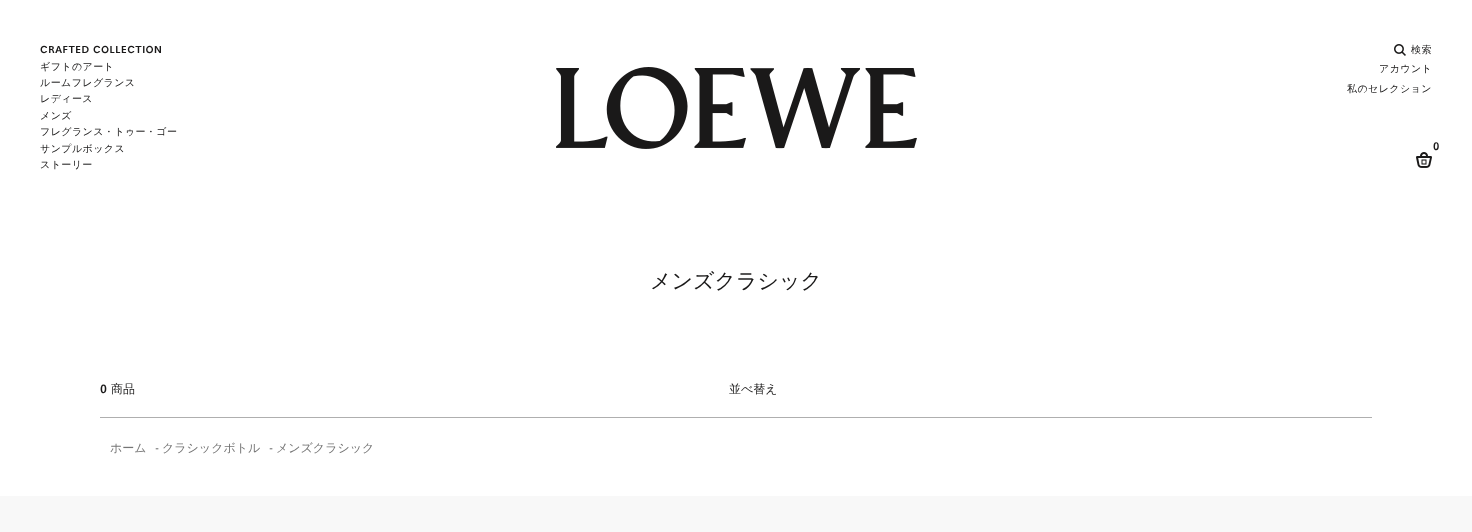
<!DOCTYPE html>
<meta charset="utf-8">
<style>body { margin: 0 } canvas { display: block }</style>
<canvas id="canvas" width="1472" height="532"></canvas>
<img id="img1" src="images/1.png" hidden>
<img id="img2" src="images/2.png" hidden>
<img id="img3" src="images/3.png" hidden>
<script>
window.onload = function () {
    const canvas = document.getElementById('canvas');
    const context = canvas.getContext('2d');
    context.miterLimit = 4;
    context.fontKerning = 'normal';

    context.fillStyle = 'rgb(255, 255, 255)';
    context.fillRect(0, 0, 1472, 532);
    context.drawImage(document.getElementById('img1'), 556, 67, 361, 82);
    context.drawImage(document.getElementById('img2'), 1394, 44, 12, 12);
    context.drawImage(document.getElementById('img3'), 1416, 152, 16, 16);
    context.fillStyle = 'rgb(175, 175, 175)';
    context.fillRect(100, 417, 1272, 1);
    context.fillStyle = 'rgb(248, 248, 248)';
    context.fillRect(0, 496, 1472, 36);
    context.letterSpacing = '0.4px';
    context.font = '500 10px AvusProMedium';
    context.fillStyle = 'rgb(26, 25, 25)';
    context.fillText('CRAFTED COLLECTION', 40, 53);
    context.font = '500 10px WenQuanYi Zen Hei';
    context.fillText('ギフトのアート', 40, 70);
    context.fillText('ルームフレグランス', 40, 86);
    context.fillText('レディース', 40, 102);
    context.fillText('メンズ', 40, 119);
    context.fillText('フレグランス・トゥー・ゴー', 40, 135);
    context.fillText('サンプルボックス', 40, 152);
    context.fillText('ストーリー', 40, 168);
    context.fillText('検索', 1411, 53);
    context.fillText('アカウント', 1379, 72);
    context.fillText('私のセレクション', 1347, 92);
    context.font = '500 11px AvusProMedium';
    context.fillText('0', 1433, 150);
    context.letterSpacing = '0px';
    context.font = '500 21px WenQuanYi Zen Hei';
    context.fillText('メンズクラシック', 650, 288);
    context.font = '500 12px AvusProMedium';
    context.fillText('0', 100, 393);
    context.font = '500 12px WenQuanYi Zen Hei';
    context.fillText('商品', 111, 393);
    context.fillText('並べ替え', 729, 393);
    context.fillStyle = 'rgb(117, 117, 117)';
    context.fillText('ホーム', 110, 452);
    context.font = '500 12px AvusProMedium';
    context.fillText('-', 155, 452);
    context.font = '500 12px WenQuanYi Zen Hei';
    context.fillText('クラシックボトル', 162, 452);
    context.font = '500 12px AvusProMedium';
    context.fillText('-', 269, 452);
    context.font = '500 12px WenQuanYi Zen Hei';
    context.fillText('メンズクラシック', 276, 452);
};
</script>
